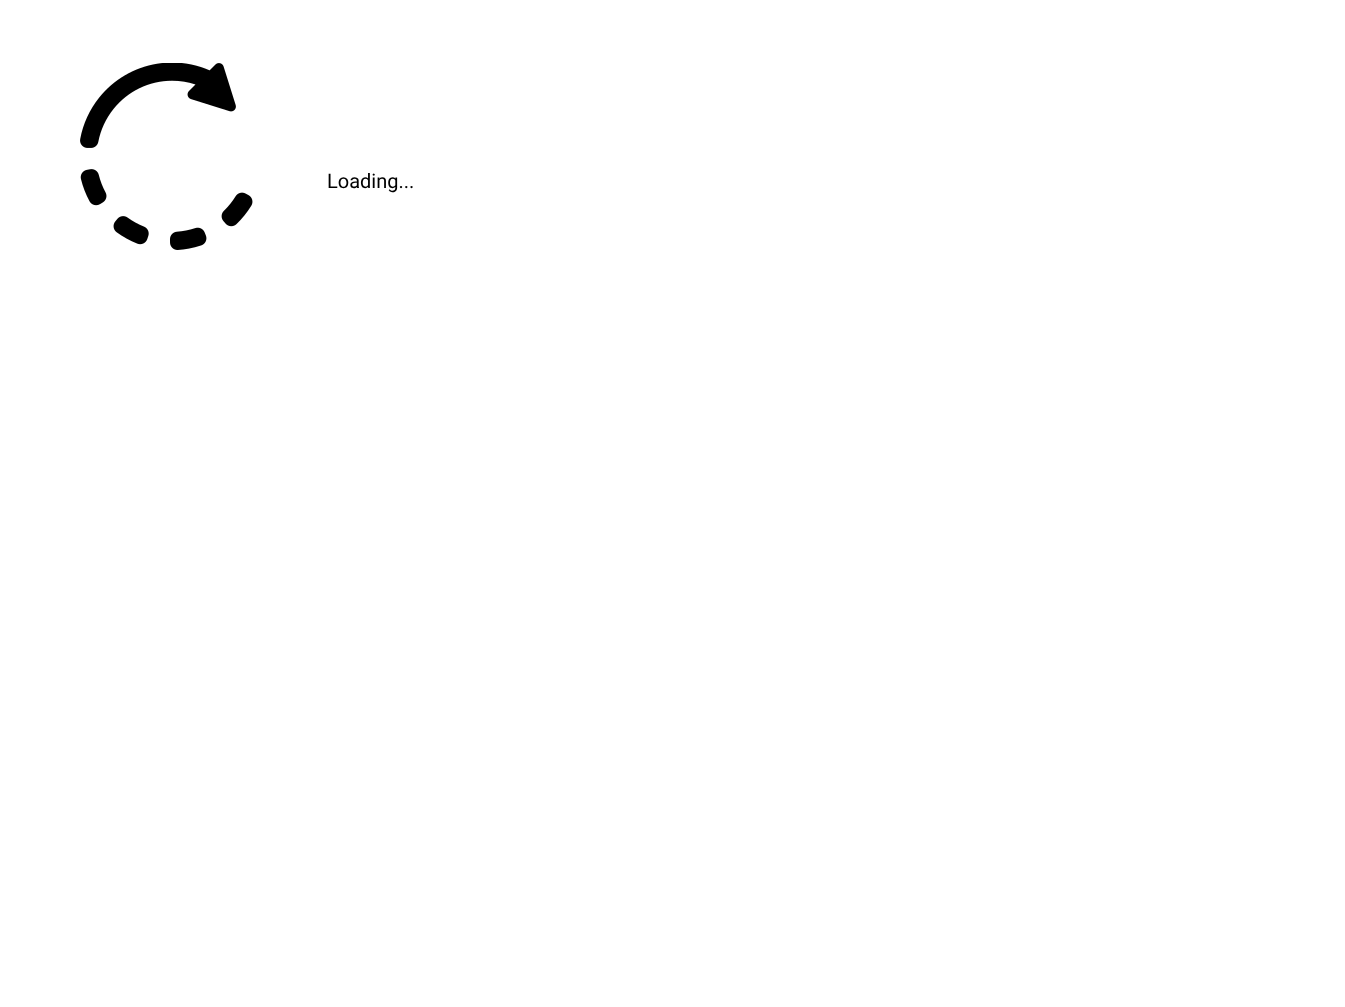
<!DOCTYPE html>
<meta charset="utf-8">
<style>body { margin: 0 } canvas { display: block }</style>
<canvas id="canvas" width="1345" height="1007"></canvas>
<img id="img1" src="images/1.png" hidden>
<script>
window.onload = function () {
    const canvas = document.getElementById('canvas');
    const context = canvas.getContext('2d');
    context.miterLimit = 4;
    context.fontKerning = 'normal';

    context.fillStyle = 'rgb(255, 255, 255)';
    context.fillRect(0, 0, 1345, 1007);
    context.drawImage(document.getElementById('img1'), 80, 63, 173, 187);
    context.font = '20px Roboto';
    context.fillStyle = 'rgb(0, 0, 0)';
    context.fillText('Loading...', 327, 188);
};
</script>
